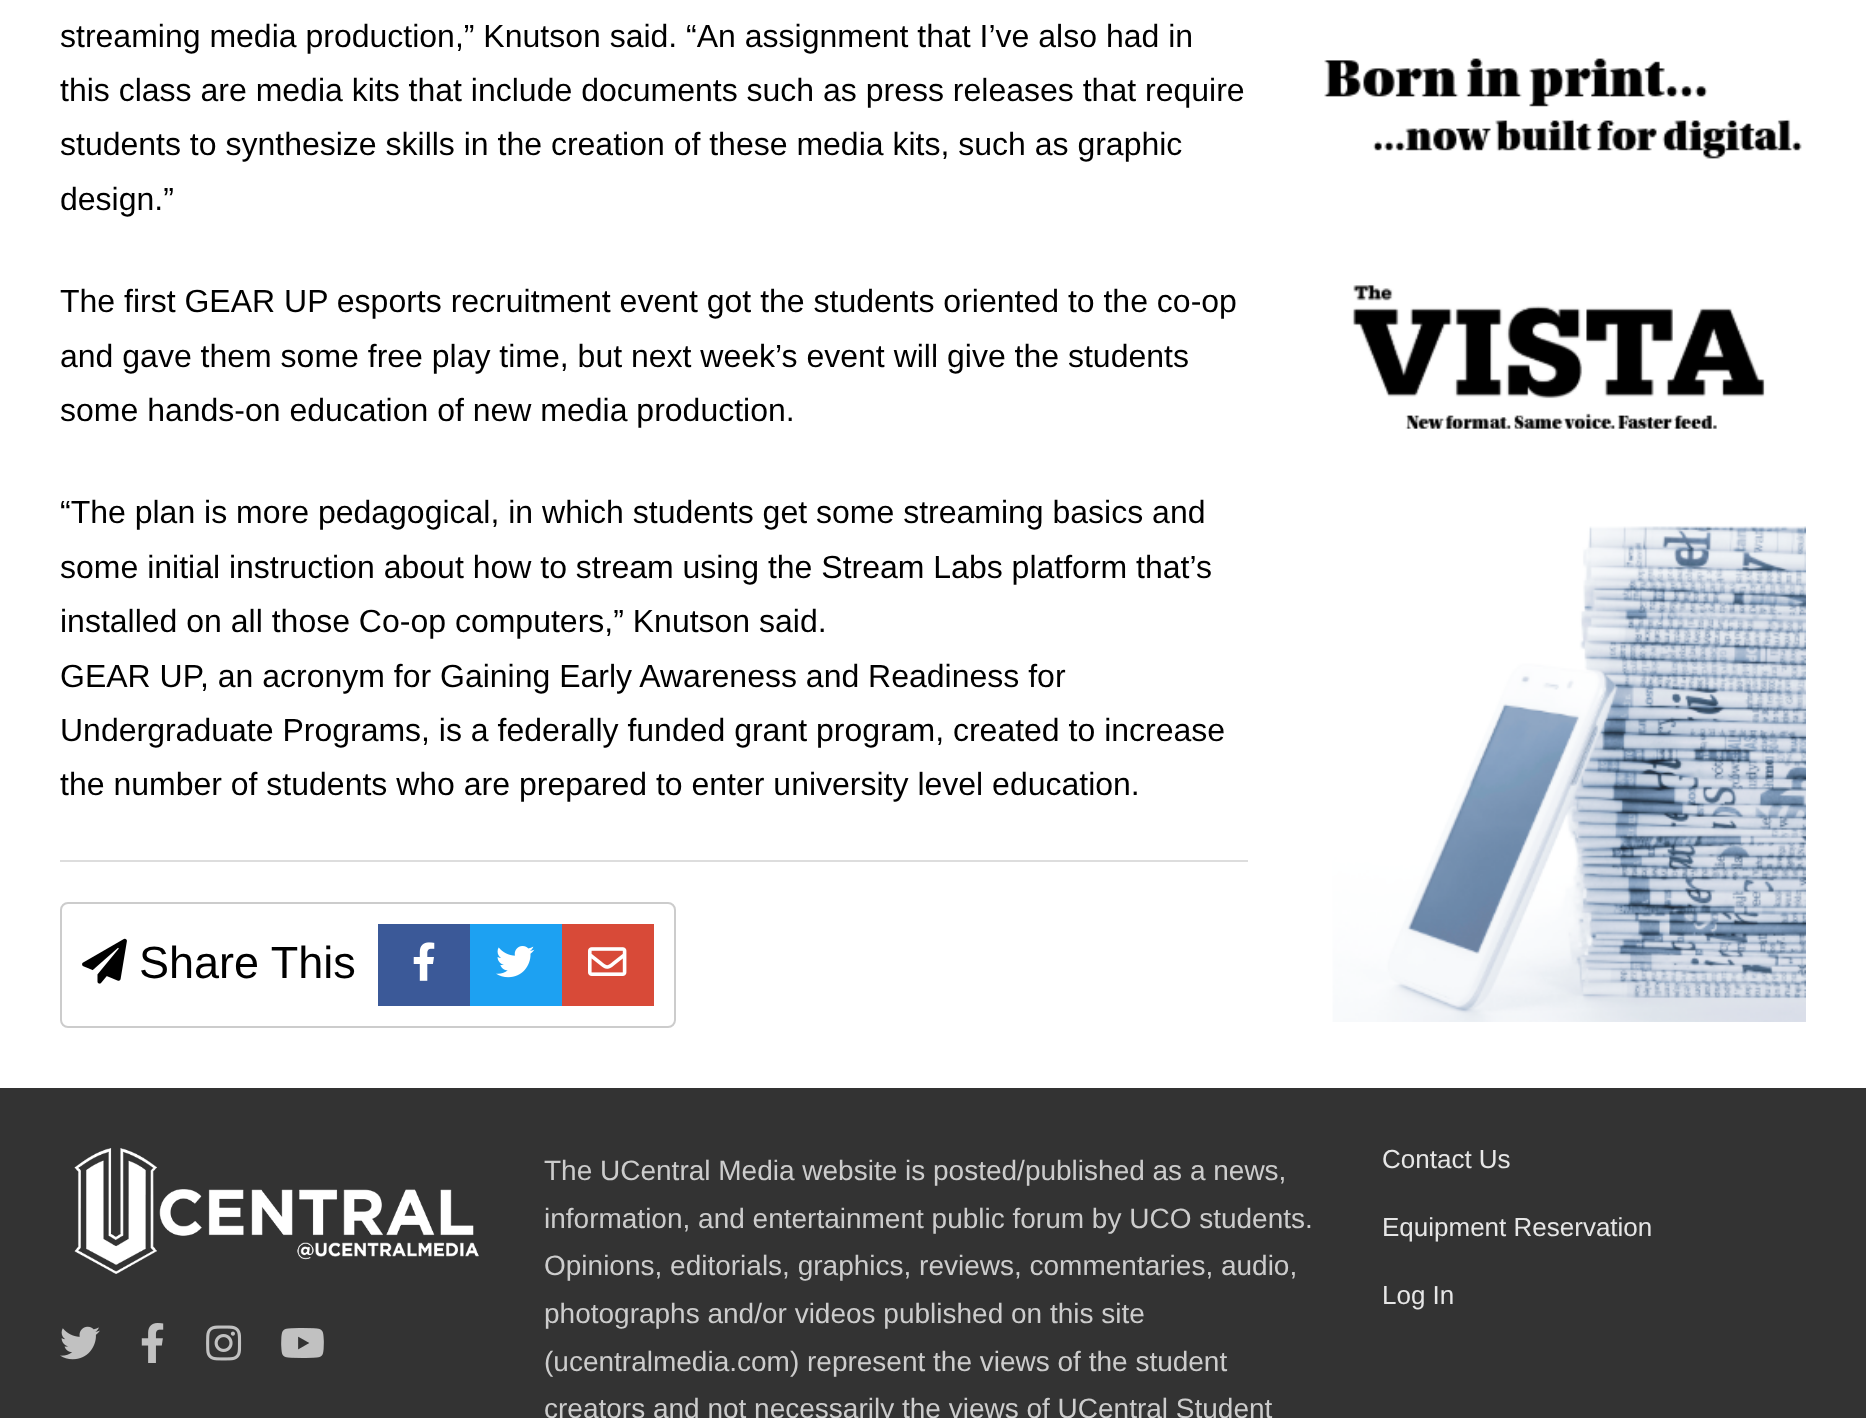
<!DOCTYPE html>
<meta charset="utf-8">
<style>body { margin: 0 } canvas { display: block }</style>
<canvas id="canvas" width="1866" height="1418"></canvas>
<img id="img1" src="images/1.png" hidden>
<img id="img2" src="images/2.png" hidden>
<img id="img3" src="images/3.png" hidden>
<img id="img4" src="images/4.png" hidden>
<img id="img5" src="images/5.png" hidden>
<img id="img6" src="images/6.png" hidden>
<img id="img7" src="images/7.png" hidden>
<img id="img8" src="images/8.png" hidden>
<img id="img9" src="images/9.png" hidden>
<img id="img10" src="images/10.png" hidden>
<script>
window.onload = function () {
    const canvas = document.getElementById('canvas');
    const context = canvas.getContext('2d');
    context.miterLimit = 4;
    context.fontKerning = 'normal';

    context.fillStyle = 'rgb(51, 51, 51)';
    context.fillRect(0, 0, 1866, 1418);
    context.fillStyle = 'rgb(255, 255, 255)';
    context.fillRect(0, 0, 1866, 1088);
    context.fillStyle = 'rgb(221, 221, 221)';
    context.fillRect(60, 860, 1188, 2);
    context.beginPath();
    context.roundRect(61, 903, 614, 124, 7);
    context.strokeStyle = 'rgb(204, 204, 204)';
    context.lineWidth = 2;
    context.stroke();
    context.drawImage(document.getElementById('img1'), 82, 938, 45, 46);
    context.fillStyle = 'rgb(59, 89, 152)';
    context.fillRect(378, 924, 92, 82);
    context.drawImage(document.getElementById('img2'), 413, 942, 22, 39);
    context.fillStyle = 'rgb(29, 161, 242)';
    context.fillRect(470, 924, 92, 82);
    context.drawImage(document.getElementById('img3'), 496, 946, 39, 32);
    context.fillStyle = 'rgb(216, 74, 56)';
    context.fillRect(562, 924, 92, 82);
    context.drawImage(document.getElementById('img4'), 588, 947, 39, 29);
    context.drawImage(document.getElementById('img5'), 1324, 58, 482, 964);
    context.drawImage(document.getElementById('img6'), 74, 1148, 405, 126);
    context.drawImage(document.getElementById('img7'), 60, 1326, 40, 34);
    context.drawImage(document.getElementById('img8'), 141, 1323, 23, 40);
    context.drawImage(document.getElementById('img9'), 206, 1325, 36, 36);
    context.drawImage(document.getElementById('img10'), 281, 1328, 43, 30);
    context.font = '32px Liberation Sans';
    context.fillStyle = 'rgb(0, 0, 0)';
    context.fillText('streaming media production,” Knutson said. “An assignment that I’ve also had in', 60, 47);
    context.fillText('this class are media kits that include documents such as press releases that require', 60, 101);
    context.fillText('students to synthesize skills in the creation of these media kits, such as graphic', 60, 155);
    context.fillText('design.”', 60, 210);
    context.fillText('The first GEAR UP esports recruitment event got the students oriented to the co-op', 60, 312);
    context.fillText('and gave them some free play time, but next week’s event will give the students', 60, 367);
    context.fillText('some hands-on education of new media production.', 60, 421);
    context.fillText('“The plan is more pedagogical, in which students get some streaming basics and', 60, 523);
    context.fillText('some initial instruction about how to stream using the Stream Labs platform that’s', 60, 578);
    context.fillText('installed on all those Co-op computers,” Knutson said.', 60, 632);
    context.fillText('GEAR UP, an acronym for Gaining Early Awareness and Readiness for', 60, 687);
    context.fillText('Undergraduate Programs, is a federally funded grant program, created to increase', 60, 741);
    context.fillText('the number of students who are prepared to enter university level education.', 60, 795);
    context.font = '45px Liberation Sans';
    context.fillText('Share This', 139, 978);
    context.font = '28px Liberation Sans';
    context.fillStyle = 'rgb(204, 204, 204)';
    context.fillText('The UCentral Media website is posted/published as a news,', 544, 1180);
    context.fillText('information, and entertainment public forum by UCO students.', 544, 1228);
    context.fillText('Opinions, editorials, graphics, reviews, commentaries, audio,', 544, 1275);
    context.fillText('photographs and/or videos published on this site', 544, 1323);
    context.fillText('(ucentralmedia.com) represent the views of the student', 544, 1371);
    context.fillText('creators and not necessarily the views of UCentral Student', 544, 1418);
    context.font = '26px Liberation Sans';
    context.fillStyle = 'rgb(230, 230, 230)';
    context.fillText('Contact Us', 1382, 1168);
    context.fillText('Equipment Reservation', 1382, 1236);
    context.fillText('Log In', 1382, 1304);
};
</script>
